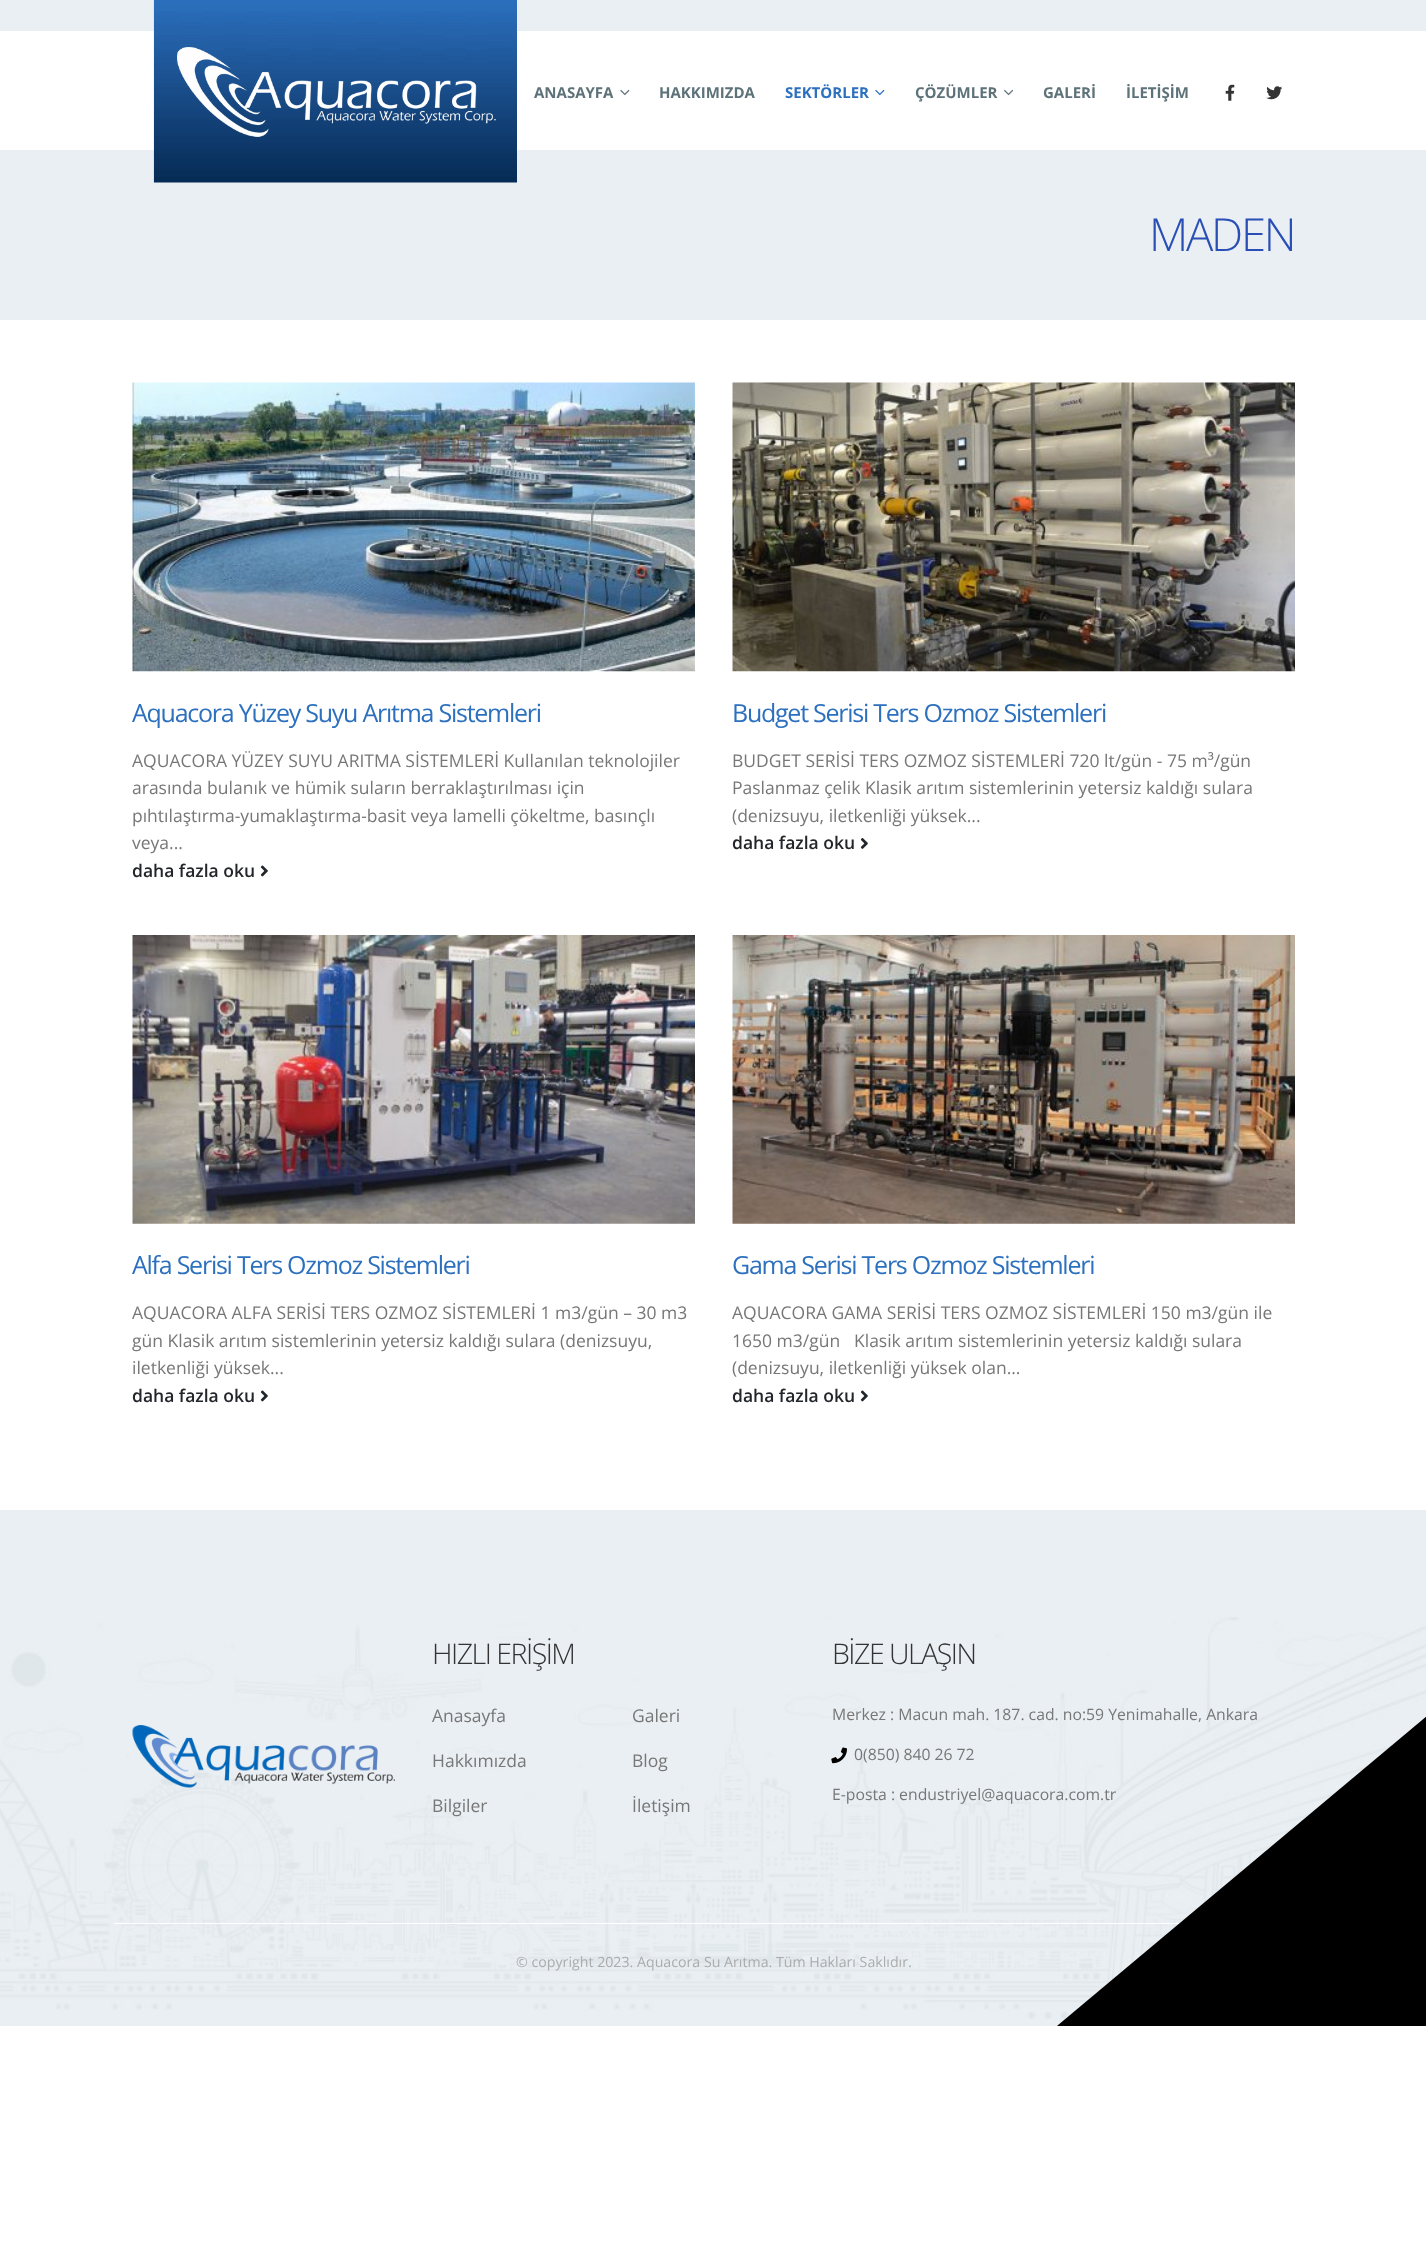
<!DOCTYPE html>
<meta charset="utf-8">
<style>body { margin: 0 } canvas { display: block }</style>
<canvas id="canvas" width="1426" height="2253"></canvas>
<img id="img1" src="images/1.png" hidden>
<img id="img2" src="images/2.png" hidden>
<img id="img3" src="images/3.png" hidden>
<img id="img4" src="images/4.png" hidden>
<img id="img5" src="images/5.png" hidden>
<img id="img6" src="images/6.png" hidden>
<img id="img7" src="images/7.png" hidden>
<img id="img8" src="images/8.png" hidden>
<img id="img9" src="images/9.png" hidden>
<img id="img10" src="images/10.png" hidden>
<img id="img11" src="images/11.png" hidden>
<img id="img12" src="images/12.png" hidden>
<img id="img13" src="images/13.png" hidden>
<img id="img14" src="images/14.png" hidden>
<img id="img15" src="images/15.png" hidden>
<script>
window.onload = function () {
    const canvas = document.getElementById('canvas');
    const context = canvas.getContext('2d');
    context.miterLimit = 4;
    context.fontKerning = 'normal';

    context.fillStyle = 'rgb(255, 255, 255)';
    context.fillRect(0, 0, 1426, 2253);
    context.fillStyle = 'rgb(234, 239, 243)';
    context.fillRect(0, 0, 1426, 31);
    context.fillRect(0, 150, 1426, 170);
    context.drawImage(document.getElementById('img1'), 153, 0, 364, 183);
    context.drawImage(document.getElementById('img2'), 620, 89, 10, 7);
    context.drawImage(document.getElementById('img3'), 875, 89, 10, 7);
    context.drawImage(document.getElementById('img4'), 1004, 89, 10, 7);
    context.drawImage(document.getElementById('img5'), 1225, 84, 10, 17);
    context.drawImage(document.getElementById('img6'), 1266, 86, 17, 14);
    context.drawImage(document.getElementById('img7'), 132, 382, 563, 290);
    context.drawImage(document.getElementById('img8'), 260, 865, 8, 12);
    context.drawImage(document.getElementById('img9'), 732, 382, 563, 290);
    context.drawImage(document.getElementById('img10'), 860, 838, 8, 11);
    context.drawImage(document.getElementById('img11'), 132, 935, 563, 289);
    context.drawImage(document.getElementById('img8'), 260, 1390, 8, 12);
    context.drawImage(document.getElementById('img12'), 732, 935, 563, 289);
    context.drawImage(document.getElementById('img8'), 860, 1390, 8, 12);
    context.fillStyle = 'rgb(233, 239, 242)';
    context.fillRect(0, 1510, 1426, 516);
    context.drawImage(document.getElementById('img13'), 0, 1617, 1426, 402);
    context.drawImage(document.getElementById('img14'), 132, 1725, 263, 63);
    context.drawImage(document.getElementById('img15'), 831, 1747, 16, 17);
    context.fillStyle = 'rgb(255, 255, 255)';
    context.fillRect(114, 1923, 1066, 1);
    context.font = 'bold 15px Open Sans';
    context.fillStyle = 'rgb(94, 114, 121)';
    context.fillText('ANASAYFA', 534, 98);
    context.fillText('HAKKIMIZDA', 659, 98);
    context.fillStyle = 'rgb(44, 112, 190)';
    context.fillText('SEKTÖRLER', 785, 98);
    context.fillStyle = 'rgb(94, 114, 121)';
    context.fillText('ÇÖZÜMLER', 915, 98);
    context.fillText('GALERİ', 1043, 98);
    context.fillText('İLETİŞİM', 1126, 98);
    context.letterSpacing = '-2.25px';
    context.font = '300 45.5px Open Sans';
    context.fillStyle = 'rgb(41, 78, 181)';
    context.fillText('MADEN', 1149, 251);
    context.letterSpacing = '-1.25px';
    context.font = '25px Open Sans';
    context.fillStyle = 'rgb(44, 112, 190)';
    context.fillText('Aquacora Yüzey Suyu Arıtma Sistemleri', 132, 722);
    context.letterSpacing = '0px';
    context.font = '17.5px Open Sans';
    context.fillStyle = 'rgb(119, 119, 119)';
    context.fillText('AQUACORA YÜZEY SUYU ARITMA SİSTEMLERİ Kullanılan teknolojiler', 132, 767);
    context.fillText('arasında bulanık ve hümik suların berraklaştırılması için', 132, 794);
    context.fillText('pıhtılaştırma-yumaklaştırma-basit veya lamelli çökeltme, basınçlı', 132, 822);
    context.fillText('veya...', 132, 849);
    context.font = '600 17.5px Open Sans';
    context.fillStyle = 'rgb(34, 37, 41)';
    context.fillText('daha fazla oku', 132, 877);
    context.letterSpacing = '-1.25px';
    context.font = '25px Open Sans';
    context.fillStyle = 'rgb(44, 112, 190)';
    context.fillText('Budget Serisi Ters Ozmoz Sistemleri', 732, 722);
    context.letterSpacing = '0px';
    context.font = '17.5px Open Sans';
    context.fillStyle = 'rgb(119, 119, 119)';
    context.fillText('BUDGET SERİSİ TERS OZMOZ SİSTEMLERİ 720 lt/gün - 75 m³/gün', 732, 767);
    context.fillText('Paslanmaz çelik Klasik arıtım sistemlerinin yetersiz kaldığı sulara', 732, 794);
    context.fillText('(denizsuyu, iletkenliği yüksek...', 732, 822);
    context.font = '600 17.5px Open Sans';
    context.fillStyle = 'rgb(34, 37, 41)';
    context.fillText('daha fazla oku', 732, 849);
    context.letterSpacing = '-1.25px';
    context.font = '25px Open Sans';
    context.fillStyle = 'rgb(44, 112, 190)';
    context.fillText('Alfa Serisi Ters Ozmoz Sistemleri', 132, 1274);
    context.letterSpacing = '0px';
    context.font = '17.5px Open Sans';
    context.fillStyle = 'rgb(119, 119, 119)';
    context.fillText('AQUACORA ALFA SERİSİ TERS OZMOZ SİSTEMLERİ 1 m3/gün – 30 m3', 132, 1319);
    context.fillText('gün Klasik arıtım sistemlerinin yetersiz kaldığı sulara (denizsuyu,', 132, 1347);
    context.fillText('iletkenliği yüksek...', 132, 1374);
    context.font = '600 17.5px Open Sans';
    context.fillStyle = 'rgb(34, 37, 41)';
    context.fillText('daha fazla oku', 132, 1402);
    context.letterSpacing = '-1.25px';
    context.font = '25px Open Sans';
    context.fillStyle = 'rgb(44, 112, 190)';
    context.fillText('Gama Serisi Ters Ozmoz Sistemleri', 732, 1274);
    context.letterSpacing = '0px';
    context.font = '17.5px Open Sans';
    context.fillStyle = 'rgb(119, 119, 119)';
    context.fillText('AQUACORA GAMA SERİSİ TERS OZMOZ SİSTEMLERİ 150 m3/gün ile', 732, 1319);
    context.fillText('1650 m3/gün', 732, 1347);
    context.fillText('Klasik arıtım sistemlerinin yetersiz kaldığı sulara', 854, 1347);
    context.fillText('(denizsuyu, iletkenliği yüksek olan...', 732, 1374);
    context.font = '600 17.5px Open Sans';
    context.fillStyle = 'rgb(34, 37, 41)';
    context.fillText('daha fazla oku', 732, 1402);
    context.letterSpacing = '-1.5px';
    context.font = '300 28.5px Open Sans';
    context.fillStyle = 'rgb(51, 51, 51)';
    context.fillText('HIZLI ERİŞİM', 432, 1664);
    context.letterSpacing = '0px';
    context.font = '17.5px Open Sans';
    context.fillStyle = 'rgb(119, 119, 119)';
    context.fillText('Anasayfa', 432, 1722);
    context.fillText('Hakkımızda', 432, 1767);
    context.fillText('Bilgiler', 432, 1812);
    context.fillText('Galeri', 632, 1722);
    context.fillText('Blog', 632, 1767);
    context.fillText('İletişim', 632, 1812);
    context.letterSpacing = '-1.5px';
    context.font = '300 28.5px Open Sans';
    context.fillStyle = 'rgb(51, 51, 51)';
    context.fillText('BİZE ULAŞIN', 832, 1664);
    context.letterSpacing = '0px';
    context.font = '15.75px Open Sans';
    context.fillStyle = 'rgb(119, 119, 119)';
    context.fillText('Merkez : Macun mah. 187. cad. no:59 Yenimahalle, Ankara', 832, 1720);
    context.fillText('0(850) 840 26 72', 854, 1760);
    context.fillText('E-posta : endustriyel@aquacora.com.tr', 832, 1800);
    context.font = '14.2px Open Sans';
    context.fillStyle = 'rgb(171, 171, 171)';
    context.fillText('© copyright 2023. Aquacora Su Arıtma. Tüm Hakları Saklıdır.', 516, 1967);
    context.save();
    context.beginPath();
    context.rect(0, 1510, 1426, 516);
    context.clip();
    context.fillStyle = 'rgb(0, 0, 0)';
    context.beginPath();
    context.moveTo(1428, 1715);
    context.lineTo(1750, 2098);
    context.lineTo(1367, 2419);
    context.lineTo(1045, 2036);
    context.closePath();
    context.fill();
    context.restore();
};
</script>
